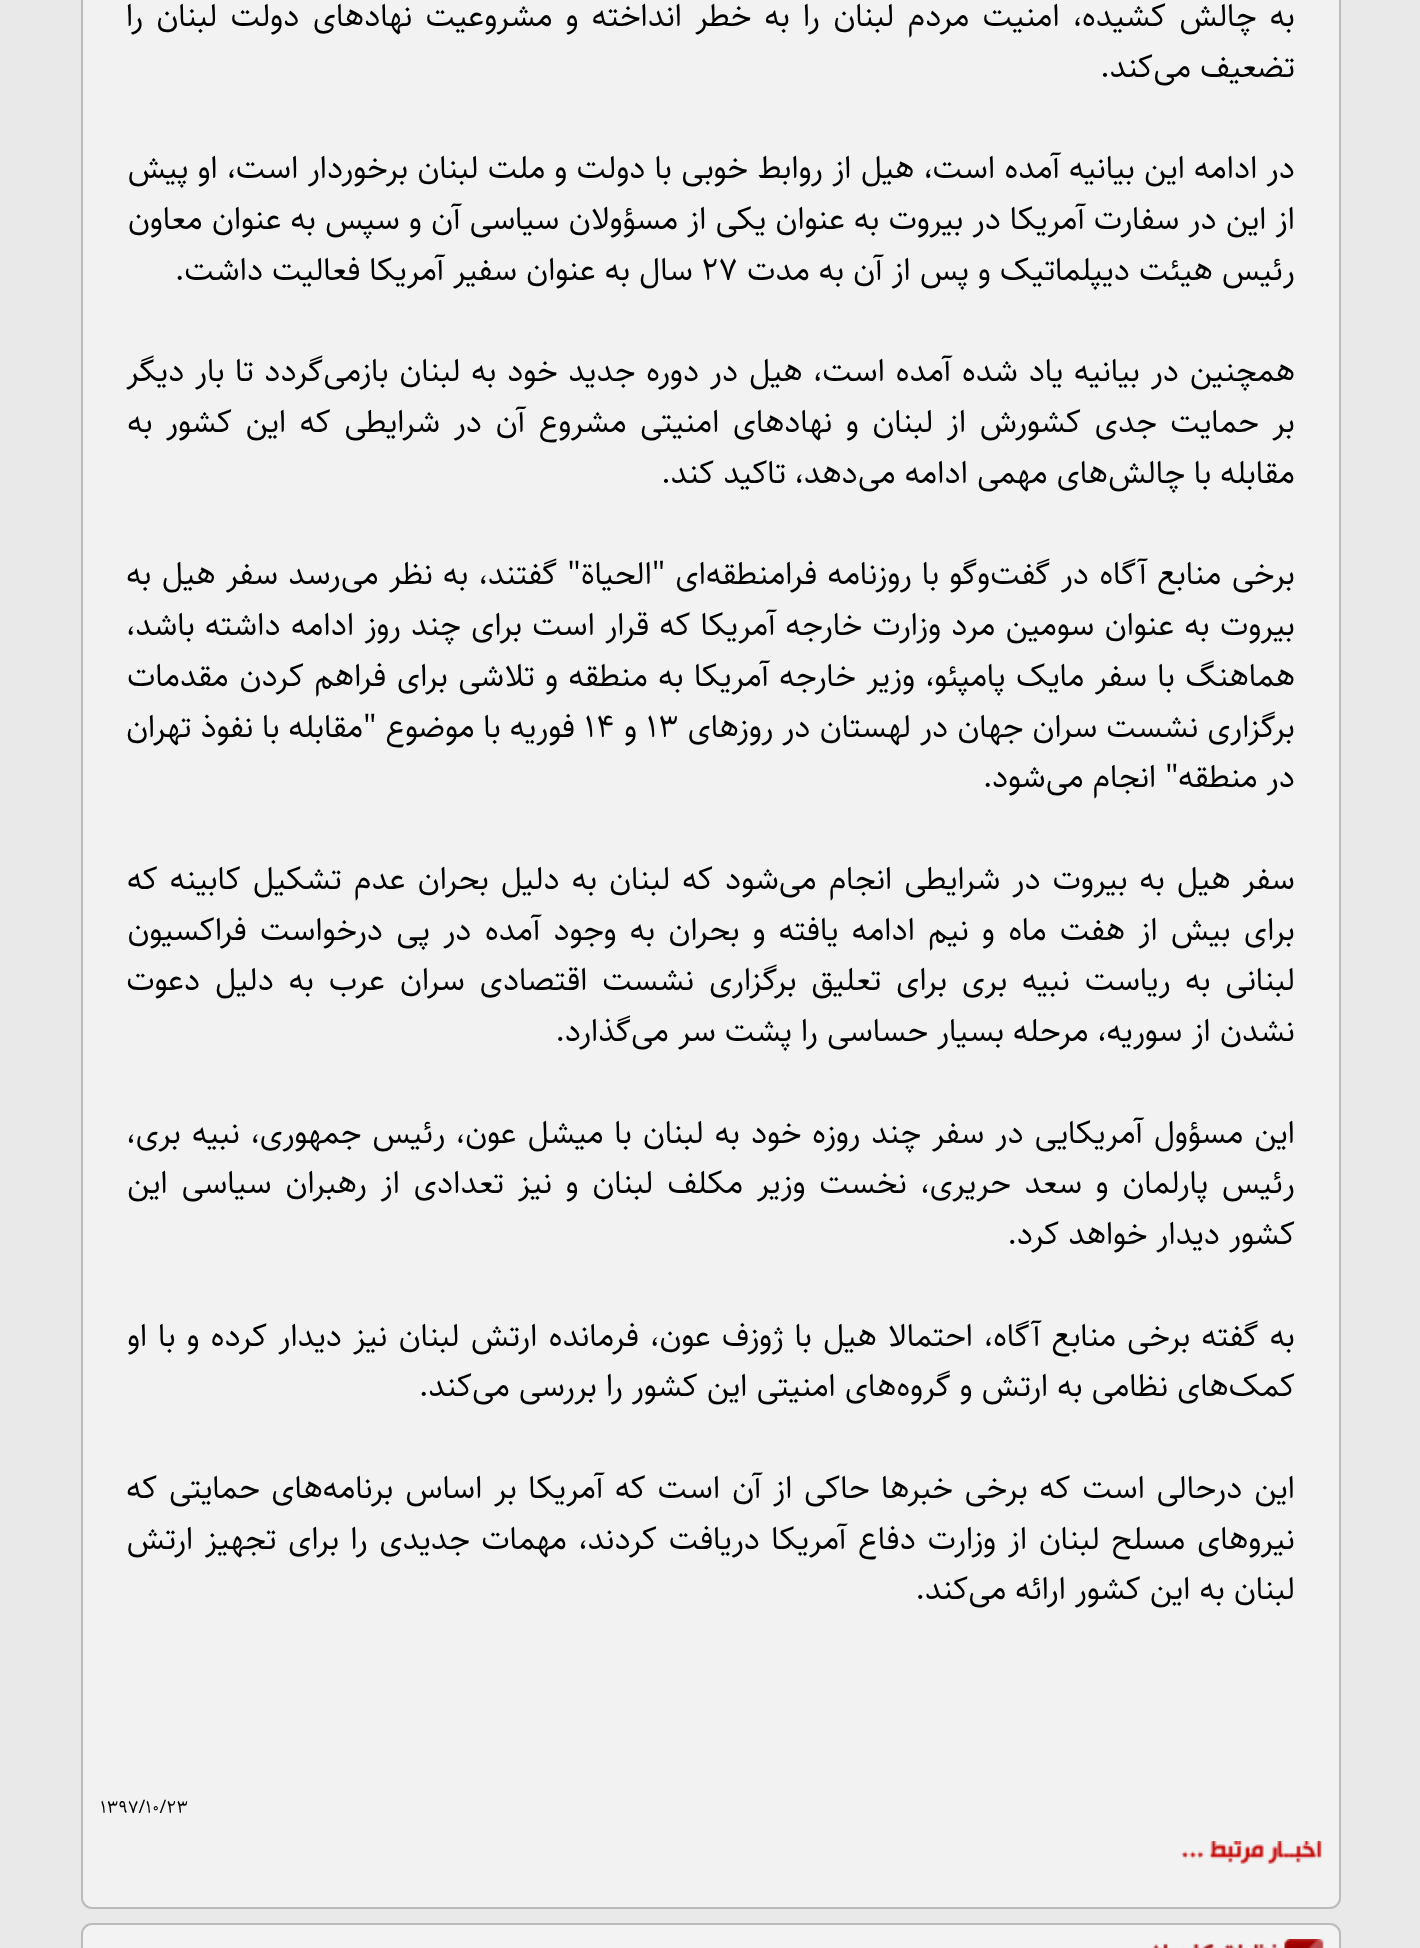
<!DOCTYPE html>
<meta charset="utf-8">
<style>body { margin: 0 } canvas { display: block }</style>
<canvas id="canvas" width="1420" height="1948"></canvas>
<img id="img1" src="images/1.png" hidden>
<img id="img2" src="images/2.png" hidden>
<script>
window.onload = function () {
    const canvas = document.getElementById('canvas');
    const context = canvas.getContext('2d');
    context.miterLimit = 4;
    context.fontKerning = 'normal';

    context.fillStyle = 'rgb(233, 233, 233)';
    context.fillRect(0, 0, 1420, 1948);
    context.fillStyle = 'rgb(242, 242, 242)';
    context.beginPath();
    context.roundRect(82, -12, 1258, 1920, 10);
    context.fill();
    context.strokeStyle = 'rgb(187, 187, 187)';
    context.lineWidth = 2;
    context.stroke();
    context.drawImage(document.getElementById('img1'), 1181, 1841, 141, 23);
    context.fillStyle = 'rgb(243, 243, 243)';
    context.beginPath();
    context.roundRect(82, 1924, 1258, 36, 10);
    context.fill();
    context.stroke();
    context.drawImage(document.getElementById('img2'), 1153, 1939, 171, 9);
    context.wordSpacing = '4.25px';
    context.direction = 'rtl';
    context.font = '32.65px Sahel';
    context.fillStyle = 'rgb(0, 0, 0)';
    context.fillText('به چالش کشیده، امنیت مردم لبنان را به خطر انداخته و مشروعیت نهادهای دولت لبنان را', 1295, 26);
    context.wordSpacing = '0px';
    context.fillText('تضعیف می‌کند.', 1295, 77);
    context.wordSpacing = '0.25px';
    context.fillText('در ادامه این بیانیه آمده است، هیل از روابط خوبی با دولت و ملت لبنان برخوردار است، او پیش', 1295, 178);
    context.wordSpacing = '0.1px';
    context.fillText('از این در سفارت آمریکا در بیروت به عنوان یکی از مسؤولان سیاسی آن و سپس به عنوان معاون', 1295, 229);
    context.wordSpacing = '0px';
    context.fillText('رئیس هیئت دیپلماتیک و پس از آن به مدت', 1295, 280);
    context.direction = 'ltr';
    context.fillText('۲۷', 701, 280);
    context.direction = 'rtl';
    context.fillText('سال به عنوان سفیر آمریکا فعالیت داشت.', 693, 280);
    context.wordSpacing = '1.75px';
    context.fillText('همچنین در بیانیه یاد شده آمده است، هیل در دوره جدید خود به لبنان بازمی‌گردد تا بار دیگر', 1295, 381);
    context.wordSpacing = '4.5px';
    context.fillText('بر حمایت جدی کشورش از لبنان و نهادهای امنیتی مشروع آن در شرایطی که این کشور به', 1295, 432);
    context.wordSpacing = '0px';
    context.fillText('مقابله با چالش‌های مهمی ادامه می‌دهد، تاکید کند.', 1295, 483);
    context.wordSpacing = '1.25px';
    context.fillText('برخی منابع آگاه در گفت‌وگو با روزنامه فرامنطقه‌ای "الحیاة" گفتند، به نظر می‌رسد سفر هیل به', 1295, 584);
    context.fillText('بیروت به عنوان سومین مرد وزارت خارجه آمریکا که قرار است برای چند روز ادامه داشته باشد،', 1295, 635);
    context.wordSpacing = '1.5px';
    context.fillText('هماهنگ با سفر مایک پامپئو، وزیر خارجه آمریکا به منطقه و تلاشی برای فراهم کردن مقدمات', 1295, 686);
    context.wordSpacing = '0px';
    context.fillText('برگزاری نشست سران جهان در لهستان در روزهای', 1295, 737);
    context.direction = 'ltr';
    context.fillText('۱۳', 646, 737);
    context.direction = 'rtl';
    context.fillText('و', 637, 737);
    context.direction = 'ltr';
    context.fillText('۱۴', 584, 737);
    context.direction = 'rtl';
    context.fillText('فوریه با موضوع "مقابله با نفوذ تهران', 575, 737);
    context.fillText('در منطقه" انجام می‌شود.', 1295, 787);
    context.wordSpacing = '3px';
    context.fillText('سفر هیل به بیروت در شرایطی انجام می‌شود که لبنان به دلیل بحران عدم تشکیل کابینه که', 1295, 889);
    context.wordSpacing = '4.25px';
    context.fillText('برای بیش از هفت ماه و نیم ادامه یافته و بحران به وجود آمده در پی درخواست فراکسیون', 1295, 940);
    context.wordSpacing = '5.75px';
    context.fillText('لبنانی به ریاست نبیه بری برای تعلیق برگزاری نشست اقتصادی سران عرب به دلیل دعوت', 1295, 990);
    context.wordSpacing = '0px';
    context.fillText('نشدن از سوریه، مرحله بسیار حساسی را پشت سر می‌گذارد.', 1295, 1041);
    context.wordSpacing = '1.9px';
    context.fillText('این مسؤول آمریکایی در سفر چند روزه خود به لبنان با میشل عون، رئیس جمهوری، نبیه بری،', 1295, 1143);
    context.wordSpacing = '4.75px';
    context.fillText('رئیس پارلمان و سعد حریری، نخست وزیر مکلف لبنان و نیز تعدادی از رهبران سیاسی این', 1295, 1193);
    context.wordSpacing = '0px';
    context.fillText('کشور دیدار خواهد کرد.', 1295, 1244);
    context.wordSpacing = '2.1px';
    context.fillText('به گفته برخی منابع آگاه، احتمالا هیل با ژوزف عون، فرمانده ارتش لبنان نیز دیدار کرده و با او', 1295, 1346);
    context.wordSpacing = '0px';
    context.fillText('کمک‌های نظامی به ارتش و گروه‌های امنیتی این کشور را بررسی می‌کند.', 1295, 1396);
    context.wordSpacing = '2.75px';
    context.fillText('این درحالی است که برخی خبرها حاکی از آن است که آمریکا بر اساس برنامه‌های حمایتی که', 1295, 1498);
    context.wordSpacing = '2.6px';
    context.fillText('نیروهای مسلح لبنان از وزارت دفاع آمریکا دریافت کردند، مهمات جدیدی را برای تجهیز ارتش', 1295, 1549);
    context.wordSpacing = '0px';
    context.fillText('لبنان به این کشور ارائه می‌کند.', 1295, 1599);
    context.direction = 'ltr';
    context.font = '18.5px Sahel';
    context.fillText('۱۳۹۷/۱۰/۲۳', 100, 1813);
};
</script>
